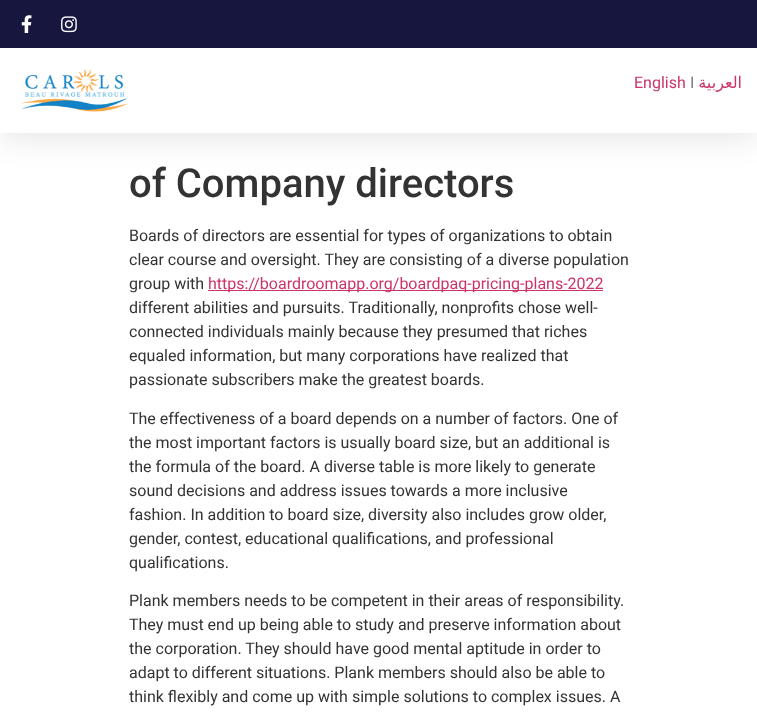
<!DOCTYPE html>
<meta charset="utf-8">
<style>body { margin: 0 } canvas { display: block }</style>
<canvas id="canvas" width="757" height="717"></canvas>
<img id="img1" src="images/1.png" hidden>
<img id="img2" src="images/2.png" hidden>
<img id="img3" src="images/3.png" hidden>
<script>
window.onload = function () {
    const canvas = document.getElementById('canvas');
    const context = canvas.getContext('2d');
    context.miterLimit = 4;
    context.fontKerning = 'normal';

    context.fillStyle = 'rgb(255, 255, 255)';
    context.fillRect(0, 0, 757, 717);
    context.fillStyle = 'rgba(0, 0, 0, 0.1)';
    context.filter = 'blur(15px)';
    context.beginPath();
    context.rect(0, 5, 757, 133);
    context.fill();
    context.filter = 'none';
    context.fillStyle = 'rgb(22, 22, 63)';
    context.fillRect(0, 0, 757, 48);
    context.drawImage(document.getElementById('img1'), 21, 15, 11, 18);
    context.drawImage(document.getElementById('img2'), 61, 16, 16, 17);
    context.fillStyle = 'rgb(255, 255, 255)';
    context.fillRect(0, 48, 757, 85);
    context.drawImage(document.getElementById('img3'), 21, 69, 107, 43);
    context.fillStyle = 'rgb(204, 51, 102)';
    context.fillRect(208, 290, 395, 1);
    context.font = '16px Roboto';
    context.fillText('English', 634, 88);
    context.fillStyle = 'rgb(122, 122, 122)';
    context.fillText('I', 690, 88);
    context.direction = 'rtl';
    context.font = '16px DejaVu Sans';
    context.fillStyle = 'rgb(204, 51, 102)';
    context.fillText('العربية', 742, 88);
    context.direction = 'ltr';
    context.font = '500 40px Roboto';
    context.fillStyle = 'rgb(51, 51, 51)';
    context.fillText('of Company directors', 129, 197);
    context.font = '16px Roboto';
    context.fillText('Boards of directors are essential for types of organizations to obtain', 129, 241);
    context.fillText('clear course and oversight. They are consisting of a diverse population', 129, 265);
    context.fillText('group with', 129, 289);
    context.fillStyle = 'rgb(204, 51, 102)';
    context.fillText('https://boardroomapp.org/boardpaq-pricing-plans-2022', 208, 289);
    context.fillStyle = 'rgb(51, 51, 51)';
    context.fillText('different abilities and pursuits. Traditionally, nonprofits chose well-', 129, 313);
    context.fillText('connected individuals mainly because they presumed that riches', 129, 337);
    context.fillText('equaled information, but many corporations have realized that', 129, 361);
    context.fillText('passionate subscribers make the greatest boards.', 129, 385);
    context.fillText('The effectiveness of a board depends on a number of factors. One of', 129, 424);
    context.fillText('the most important factors is usually board size, but an additional is', 129, 448);
    context.fillText('the formula of the board. A diverse table is more likely to generate', 129, 472);
    context.fillText('sound decisions and address issues towards a more inclusive', 129, 496);
    context.fillText('fashion. In addition to board size, diversity also includes grow older,', 129, 520);
    context.fillText('gender, contest, educational qualifications, and professional', 129, 544);
    context.fillText('qualifications.', 129, 568);
    context.fillText('Plank members needs to be competent in their areas of responsibility.', 129, 606);
    context.fillText('They must end up being able to study and preserve information about', 129, 630);
    context.fillText('the corporation. They should have good mental aptitude in order to', 129, 654);
    context.fillText('adapt to different situations. Plank members should also be able to', 129, 678);
    context.fillText('think flexibly and come up with simple solutions to complex issues. A', 129, 702);
};
</script>
